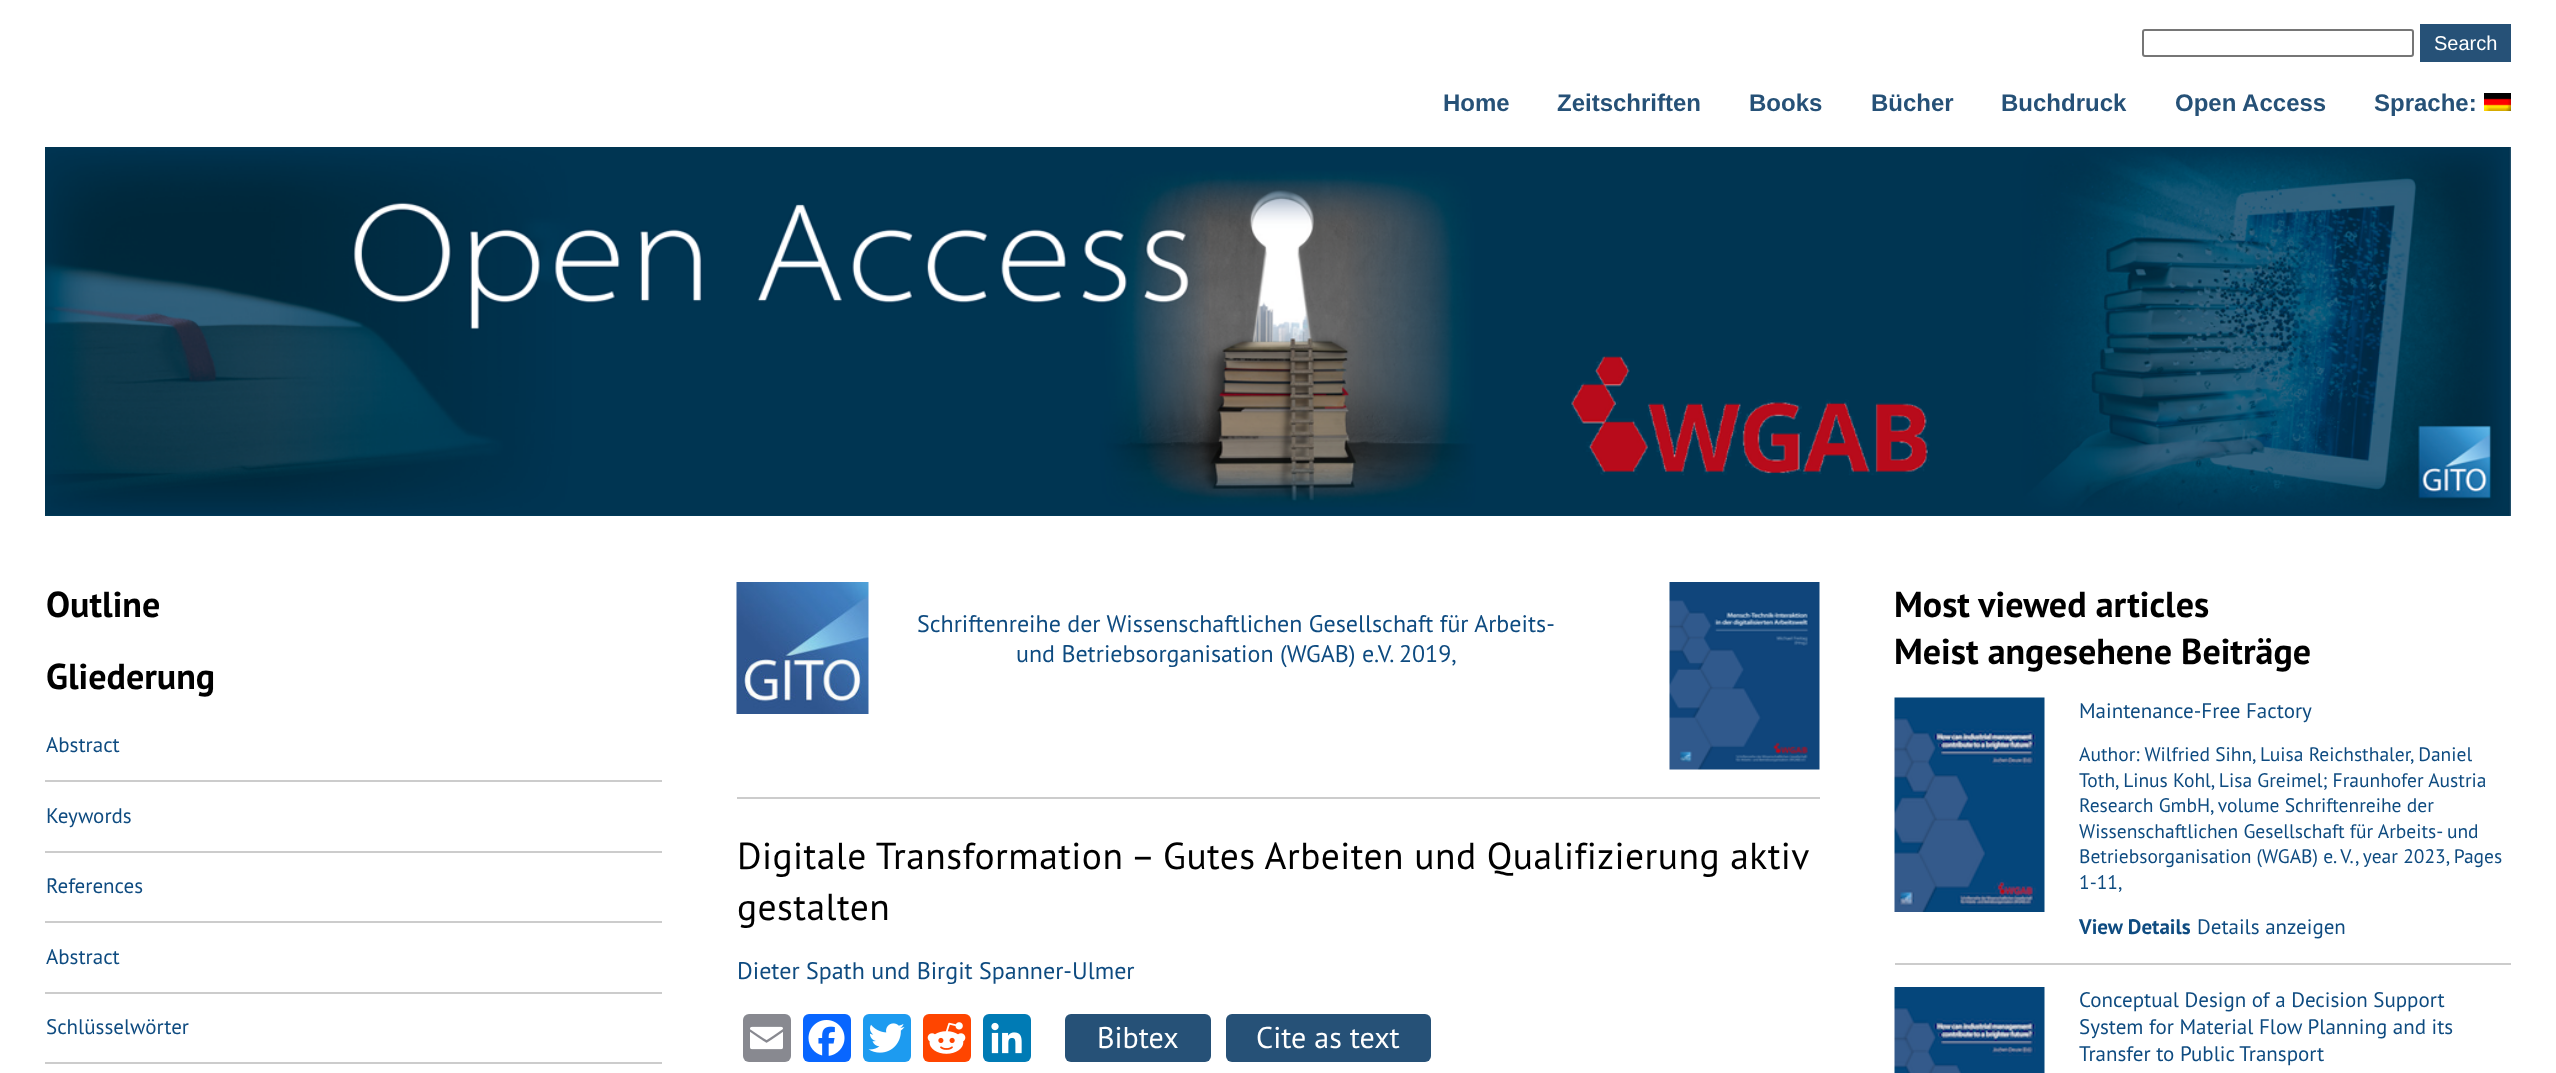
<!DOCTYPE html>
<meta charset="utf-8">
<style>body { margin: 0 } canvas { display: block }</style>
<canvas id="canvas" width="2556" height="1073"></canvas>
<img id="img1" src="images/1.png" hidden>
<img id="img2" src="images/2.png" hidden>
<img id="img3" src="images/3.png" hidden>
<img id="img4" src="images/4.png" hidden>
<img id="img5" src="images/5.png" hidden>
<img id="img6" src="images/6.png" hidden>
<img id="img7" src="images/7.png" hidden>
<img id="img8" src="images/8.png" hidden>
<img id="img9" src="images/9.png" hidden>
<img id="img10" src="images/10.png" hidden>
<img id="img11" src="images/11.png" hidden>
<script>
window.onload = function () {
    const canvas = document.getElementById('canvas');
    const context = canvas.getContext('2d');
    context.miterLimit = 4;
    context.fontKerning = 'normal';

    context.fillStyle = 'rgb(255, 255, 255)';
    context.fillRect(0, 0, 2556, 1073);
    context.beginPath();
    context.roundRect(2143, 30, 270, 26, 2);
    context.strokeStyle = 'rgb(118, 118, 118)';
    context.lineWidth = 2;
    context.stroke();
    context.fillStyle = 'rgb(38, 81, 119)';
    context.fillRect(2420, 24, 91, 38);
    context.drawImage(document.getElementById('img1'), 2484, 93, 27, 18);
    context.drawImage(document.getElementById('img2'), 45, 147, 2466, 369);
    context.fillStyle = 'rgb(204, 204, 204)';
    context.fillRect(45, 780, 617, 2);
    context.fillRect(45, 851, 617, 2);
    context.fillRect(45, 921, 617, 2);
    context.fillRect(45, 992, 617, 2);
    context.fillRect(45, 1062, 617, 2);
    context.fillRect(737, 797, 1083, 2);
    context.drawImage(document.getElementById('img3'), 736, 582, 133, 132);
    context.drawImage(document.getElementById('img4'), 1669, 582, 151, 188);
    context.fillStyle = 'rgb(136, 137, 144)';
    context.beginPath();
    context.roundRect(743, 1014, 48, 48, 6);
    context.fill();
    context.drawImage(document.getElementById('img5'), 750, 1026, 33, 24);
    context.fillStyle = 'rgb(8, 102, 255)';
    context.beginPath();
    context.roundRect(803, 1014, 48, 48, 6);
    context.fill();
    context.drawImage(document.getElementById('img6'), 808, 1020, 37, 36);
    context.fillStyle = 'rgb(29, 155, 240)';
    context.beginPath();
    context.roundRect(863, 1014, 48, 48, 6);
    context.fill();
    context.drawImage(document.getElementById('img7'), 868, 1023, 37, 30);
    context.fillStyle = 'rgb(255, 69, 0)';
    context.beginPath();
    context.roundRect(923, 1014, 48, 48, 6);
    context.fill();
    context.drawImage(document.getElementById('img8'), 927, 1022, 39, 32);
    context.fillStyle = 'rgb(0, 123, 181)';
    context.beginPath();
    context.roundRect(983, 1014, 48, 48, 6);
    context.fill();
    context.drawImage(document.getElementById('img9'), 991, 1022, 31, 32);
    context.fillStyle = 'rgb(38, 81, 119)';
    context.beginPath();
    context.roundRect(1065, 1014, 146, 48, 6);
    context.fill();
    context.beginPath();
    context.roundRect(1226, 1014, 205, 48, 6);
    context.fill();
    context.fillStyle = 'rgb(204, 204, 204)';
    context.fillRect(1895, 963, 616, 2);
    context.drawImage(document.getElementById('img10'), 1894, 697, 151, 215);
    context.drawImage(document.getElementById('img11'), 1894, 987, 151, 86);
    context.font = '20px Liberation Sans';
    context.fillStyle = 'rgb(255, 255, 255)';
    context.fillText('Search', 2434, 50);
    context.font = 'bold 24px Liberation Sans';
    context.fillStyle = 'rgb(38, 81, 119)';
    context.fillText('Home', 1443, 111);
    context.fillText('Zeitschriften', 1557, 111);
    context.fillText('Books', 1749, 111);
    context.fillText('Bücher', 1871, 111);
    context.fillText('Buchdruck', 2001, 111);
    context.fillText('Open Access', 2175, 111);
    context.fillText('Sprache:', 2374, 111);
    context.font = 'bold 36px PT Sans';
    context.fillStyle = 'rgb(0, 0, 0)';
    context.fillText('Outline', 46, 617);
    context.fillText('Gliederung', 46, 689);
    context.font = '21px PT Sans';
    context.fillStyle = 'rgb(14, 75, 128)';
    context.fillText('Abstract', 46, 752);
    context.fillText('Keywords', 46, 823);
    context.fillText('References', 46, 893);
    context.fillText('Abstract', 46, 964);
    context.fillText('Schlüsselwörter', 46, 1034);
    context.font = '24px PT Sans';
    context.fillText('Schriftenreihe der Wissenschaftlichen Gesellschaft für Arbeits-', 917, 632);
    context.fillText('und Betriebsorganisation (WGAB) e.V. 2019,', 1016, 662);
    context.letterSpacing = '0.45px';
    context.wordSpacing = '-0.25px';
    context.font = '37.5px PT Sans';
    context.fillStyle = 'rgb(0, 0, 0)';
    context.fillText('Digitale Transformation – Gutes Arbeiten und Qualifizierung aktiv', 737, 869);
    context.wordSpacing = '0px';
    context.fillText('gestalten', 737, 920);
    context.letterSpacing = '0px';
    context.font = '24px PT Sans';
    context.fillStyle = 'rgb(14, 75, 128)';
    context.fillText('Dieter Spath und Birgit Spanner-Ulmer', 737, 979);
    context.font = '30px PT Sans';
    context.fillStyle = 'rgb(255, 255, 255)';
    context.fillText('Bibtex', 1097, 1048);
    context.fillText('Cite as text', 1256, 1048);
    context.font = 'bold 36px PT Sans';
    context.fillStyle = 'rgb(0, 0, 0)';
    context.fillText('Most viewed articles', 1894, 617);
    context.fillText('Meist angesehene Beiträge', 1894, 664);
    context.font = '21px PT Sans';
    context.fillStyle = 'rgb(14, 75, 128)';
    context.fillText('Maintenance-Free Factory', 2079, 718);
    context.font = '19.5px PT Sans';
    context.fillText('Author: Wilfried Sihn, Luisa Reichsthaler, Daniel', 2079, 761);
    context.fillText('Toth, Linus Kohl, Lisa Greimel; Fraunhofer Austria', 2079, 787);
    context.fillText('Research GmbH, volume Schriftenreihe der', 2079, 812);
    context.fillText('Wissenschaftlichen Gesellschaft für Arbeits- und', 2079, 838);
    context.fillText('Betriebsorganisation (WGAB) e. V., year 2023, Pages', 2079, 863);
    context.fillText('1-11,', 2079, 889);
    context.font = 'bold 21px PT Sans';
    context.fillText('View Details', 2079, 934);
    context.font = '21px PT Sans';
    context.fillText('Details anzeigen', 2197, 934);
    context.fillText('Conceptual Design of a Decision Support', 2079, 1007);
    context.fillText('System for Material Flow Planning and its', 2079, 1034);
    context.fillText('Transfer to Public Transport', 2079, 1061);
};
</script>
